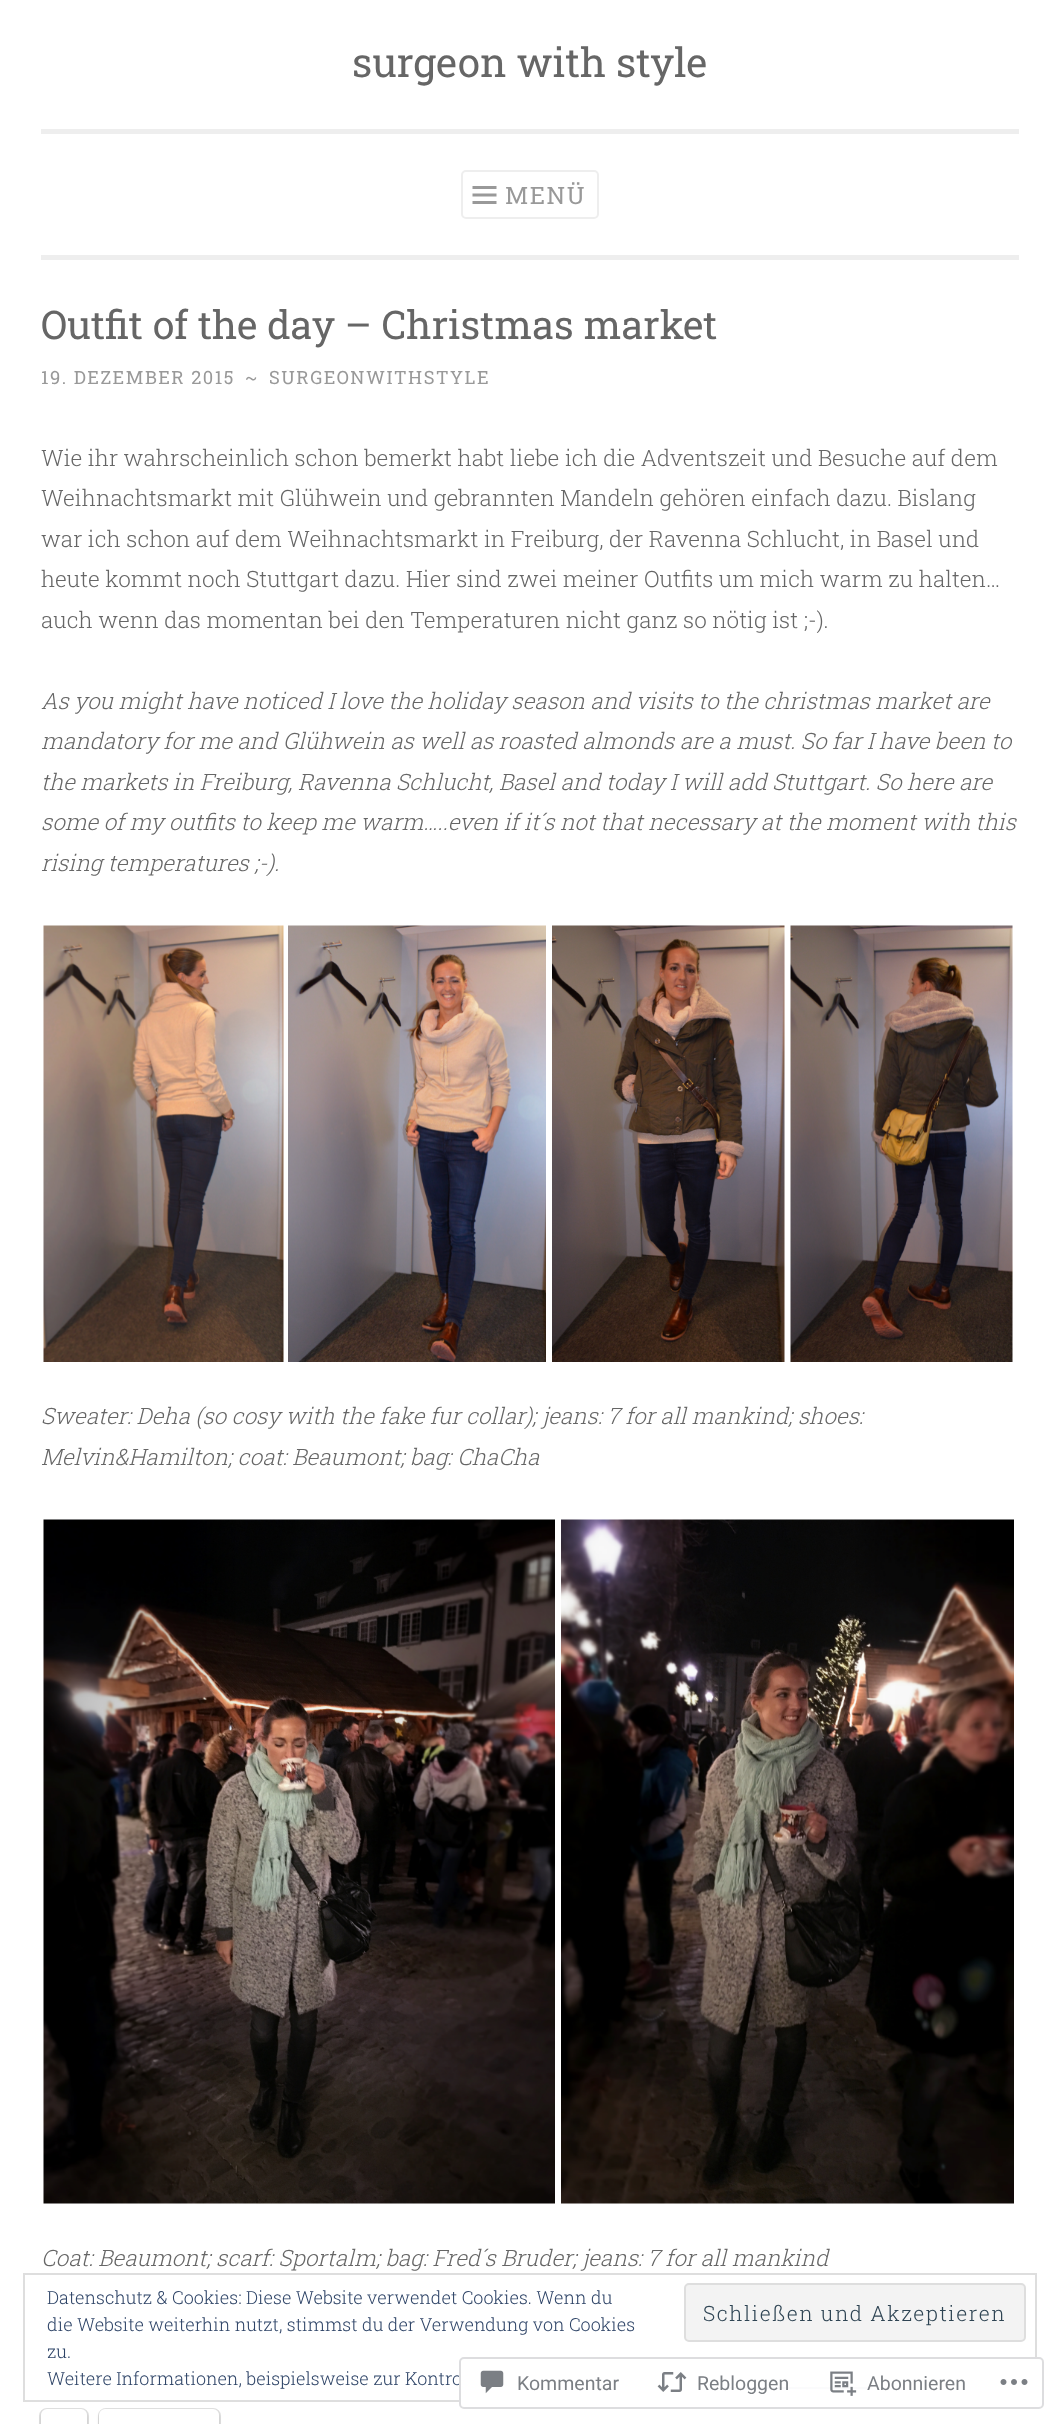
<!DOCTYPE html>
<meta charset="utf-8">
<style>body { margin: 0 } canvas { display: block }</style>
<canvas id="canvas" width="1059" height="2424"></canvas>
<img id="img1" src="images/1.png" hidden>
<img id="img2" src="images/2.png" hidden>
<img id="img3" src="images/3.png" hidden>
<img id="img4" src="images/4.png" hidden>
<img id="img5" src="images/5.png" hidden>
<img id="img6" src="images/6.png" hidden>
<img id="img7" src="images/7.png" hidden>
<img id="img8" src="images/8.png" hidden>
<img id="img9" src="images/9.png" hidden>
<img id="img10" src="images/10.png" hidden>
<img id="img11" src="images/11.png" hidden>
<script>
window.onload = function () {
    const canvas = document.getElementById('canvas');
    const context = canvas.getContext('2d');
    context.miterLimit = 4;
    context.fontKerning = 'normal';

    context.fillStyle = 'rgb(255, 255, 255)';
    context.fillRect(0, 0, 1059, 2424);
    context.fillStyle = 'rgb(238, 238, 238)';
    context.fillRect(41, 255, 978, 5);
    context.fillRect(41, 129, 978, 5);
    context.beginPath();
    context.roundRect(462, 171, 136, 47, 4);
    context.strokeStyle = 'rgb(238, 238, 238)';
    context.lineWidth = 2;
    context.stroke();
    context.drawImage(document.getElementById('img1'), 472, 186, 25, 18);
    context.drawImage(document.getElementById('img2'), 43, 925, 241, 437);
    context.drawImage(document.getElementById('img3'), 288, 925, 258, 437);
    context.drawImage(document.getElementById('img4'), 552, 925, 233, 437);
    context.drawImage(document.getElementById('img5'), 790, 925, 223, 437);
    context.drawImage(document.getElementById('img6'), 43, 1519, 512, 685);
    context.drawImage(document.getElementById('img7'), 561, 1519, 453, 685);
    context.beginPath();
    context.roundRect(40, 2409, 48, 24, 7);
    context.strokeStyle = 'rgb(224, 224, 224)';
    context.stroke();
    context.fillStyle = 'rgba(0, 0, 0, 0.12)';
    context.filter = 'blur(1.5px)';
    context.beginPath();
    context.roundRect(41, 2411, 46, 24, 6);
    context.fill();
    context.filter = 'none';
    context.fillStyle = 'rgb(255, 255, 255)';
    context.beginPath();
    context.roundRect(41, 2409, 46, 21, 6);
    context.fill();
    context.beginPath();
    context.roundRect(99, 2409, 121, 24, 7);
    context.stroke();
    context.fillStyle = 'rgba(0, 0, 0, 0.12)';
    context.filter = 'blur(1.5px)';
    context.beginPath();
    context.roundRect(99, 2411, 120, 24, 6);
    context.fill();
    context.filter = 'none';
    context.fillStyle = 'rgb(255, 255, 255)';
    context.beginPath();
    context.roundRect(99, 2409, 120, 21, 6);
    context.fill();
    context.strokeStyle = 'rgb(222, 222, 222)';
    context.strokeRect(24, 2274, 1012, 127);
    context.fillStyle = 'rgb(243, 243, 243)';
    context.beginPath();
    context.roundRect(685, 2284, 340, 57, 4);
    context.fill();
    context.stroke();
    context.fillStyle = 'rgb(46, 68, 103)';
    context.fillRect(725, 2387, 147, 2);
    context.font = '40.5px Roboto Slab';
    context.fillStyle = 'rgb(102, 102, 102)';
    context.fillText('surgeon with style', 352, 77);
    context.letterSpacing = '1.5px';
    context.font = '24px Roboto Slab';
    context.fillStyle = 'rgb(153, 153, 153)';
    context.fillText('MENÜ', 505, 204);
    context.letterSpacing = '0px';
    context.font = '39.4px Roboto Slab';
    context.fillStyle = 'rgb(102, 102, 102)';
    context.fillText('Outfit of the day – Christmas market', 41, 339);
    context.letterSpacing = '1.5px';
    context.font = '18.25px Roboto Slab';
    context.fillStyle = 'rgb(153, 153, 153)';
    context.fillText('19. DEZEMBER 2015', 41, 384);
    context.fillText('~', 245, 384);
    context.fillText('SURGEONWITHSTYLE', 269, 384);
    context.letterSpacing = '0px';
    context.font = '300 22.5px Roboto Slab';
    context.fillStyle = 'rgb(102, 102, 102)';
    context.fillText('Wie ihr wahrscheinlich schon bemerkt habt liebe ich die Adventszeit und Besuche auf dem', 41, 466);
    context.fillText('Weihnachtsmarkt mit Glühwein und gebrannten Mandeln gehören einfach dazu. Bislang', 41, 506);
    context.fillText('war ich schon auf dem Weihnachtsmarkt in Freiburg, der Ravenna Schlucht, in Basel und', 41, 547);
    context.fillText('heute kommt noch Stuttgart dazu. Hier sind zwei meiner Outfits um mich warm zu halten…', 41, 587);
    context.fillText('auch wenn das momentan bei den Temperaturen nicht ganz so nötig ist ;-).', 41, 628);
    context.font = 'italic 300 22.5px Roboto Slab';
    context.fillText('As you might have noticed I love the holiday season and visits to the christmas market are', 41, 709);
    context.fillText('mandatory for me and Glühwein as well as roasted almonds are a must. So far I have been to', 41, 749);
    context.fillText('the markets in Freiburg, Ravenna Schlucht, Basel and today I will add Stuttgart. So here are', 41, 790);
    context.fillText('some of my outfits to keep me warm…..even if it´s not that necessary at the moment with this', 41, 830);
    context.fillText('rising temperatures ;-).', 41, 871);
    context.fillText('Sweater: Deha (so cosy with the fake fur collar); jeans: 7 for all mankind; shoes:', 41, 1424);
    context.fillText('Melvin&Hamilton; coat: Beaumont; bag: ChaCha', 41, 1465);
    context.fillText('Coat: Beaumont; scarf: Sportalm; bag: Fred´s Bruder; jeans: 7 for all mankind', 41, 2266);
    context.font = '300 18px Roboto Slab';
    context.fillStyle = 'rgb(46, 68, 103)';
    context.fillText('Datenschutz & Cookies: Diese Website verwendet Cookies. Wenn du', 47, 2304);
    context.fillText('die Website weiterhin nutzt, stimmst du der Verwendung von Cookies', 47, 2331);
    context.letterSpacing = '1.5px';
    context.font = '300 21px Roboto Slab';
    context.fillStyle = 'rgb(46, 68, 83)';
    context.fillText('Schließen und Akzeptieren', 703, 2321);
    context.letterSpacing = '0px';
    context.font = '300 18px Roboto Slab';
    context.fillStyle = 'rgb(46, 68, 103)';
    context.fillText('zu.', 47, 2358);
    context.fillText('Weitere Informationen, beispielsweise zur Kontro', 47, 2385);
    context.fillStyle = 'rgba(255, 255, 255, 0.98)';
    context.beginPath();
    context.roundRect(459, 2357, 585, 52, 5);
    context.fill();
    context.beginPath();
    context.roundRect(460, 2358, 583, 50, 4);
    context.strokeStyle = 'rgba(220, 220, 222, 0.98)';
    context.stroke();
    context.drawImage(document.getElementById('img8'), 480, 2370, 24, 24);
    context.font = '19.5px Roboto';
    context.fillStyle = 'rgb(123, 127, 132)';
    context.fillText('Kommentar', 517, 2390);
    context.drawImage(document.getElementById('img9'), 657, 2372, 30, 20);
    context.fillText('Rebloggen', 697, 2390);
    context.drawImage(document.getElementById('img10'), 830, 2371, 27, 25);
    context.fillText('Abonnieren', 867, 2390);
    context.drawImage(document.getElementById('img11'), 1000, 2379, 28, 6);
};
</script>
